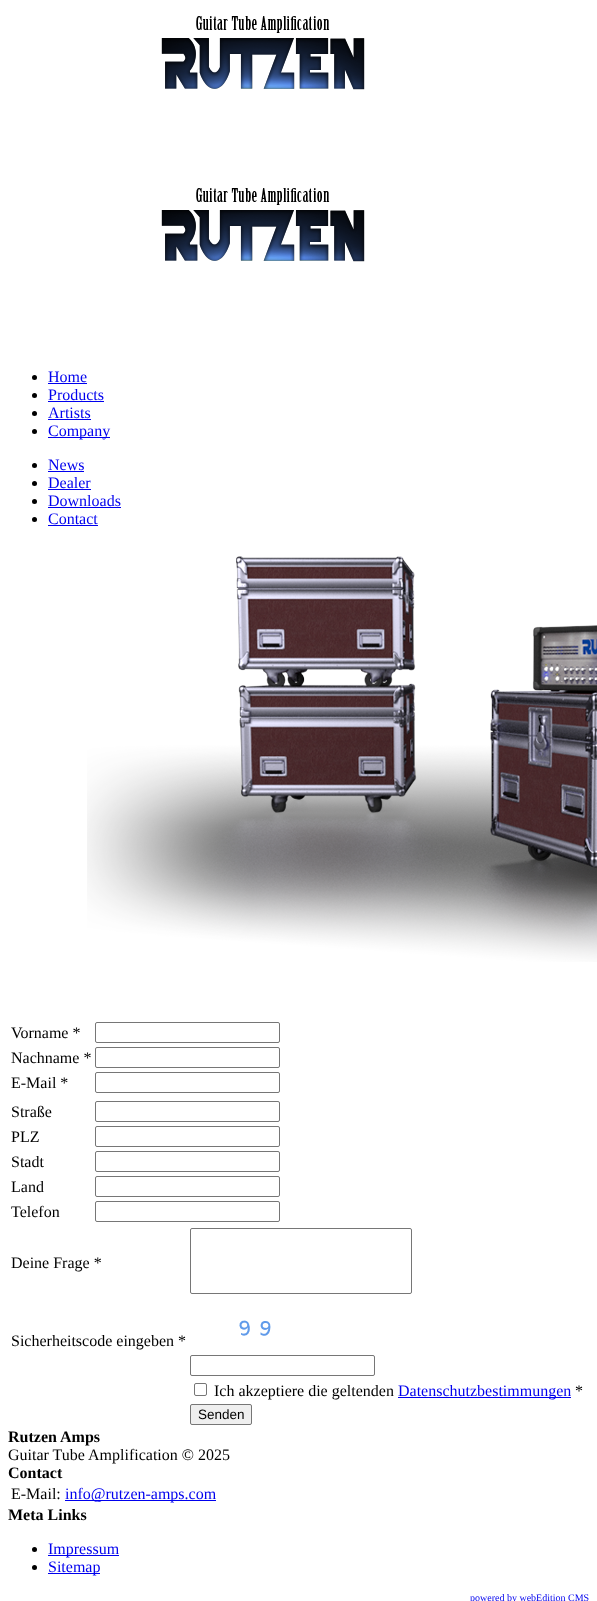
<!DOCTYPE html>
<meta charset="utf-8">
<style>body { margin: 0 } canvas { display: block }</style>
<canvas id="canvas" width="597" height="1601"></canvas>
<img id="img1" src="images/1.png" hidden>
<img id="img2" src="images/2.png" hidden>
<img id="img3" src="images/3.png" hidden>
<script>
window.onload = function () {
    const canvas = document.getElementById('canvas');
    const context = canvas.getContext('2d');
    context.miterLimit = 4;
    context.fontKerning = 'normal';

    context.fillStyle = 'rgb(255, 255, 255)';
    context.fillRect(0, 0, 597, 1601);
    context.drawImage(document.getElementById('img1'), 161, 16, 204, 74);
    context.drawImage(document.getElementById('img1'), 161, 188, 204, 74);
    context.fillStyle = 'rgb(0, 0, 0)';
    context.beginPath();
    context.arc(34.5, 377.5, 2.5, 0, 2 * Math.PI);
    context.fill();
    context.fillStyle = 'rgb(0, 0, 238)';
    context.fillRect(48, 383, 39, 1);
    context.fillStyle = 'rgb(0, 0, 0)';
    context.beginPath();
    context.arc(34.5, 395.5, 2.5, 0, 2 * Math.PI);
    context.fill();
    context.fillStyle = 'rgb(0, 0, 238)';
    context.fillRect(48, 401, 56, 1);
    context.fillStyle = 'rgb(0, 0, 0)';
    context.beginPath();
    context.arc(34.5, 413.5, 2.5, 0, 2 * Math.PI);
    context.fill();
    context.fillStyle = 'rgb(0, 0, 238)';
    context.fillRect(48, 419, 43, 1);
    context.fillStyle = 'rgb(0, 0, 0)';
    context.beginPath();
    context.arc(34.5, 431.5, 2.5, 0, 2 * Math.PI);
    context.fill();
    context.fillStyle = 'rgb(0, 0, 238)';
    context.fillRect(48, 437, 62, 1);
    context.fillStyle = 'rgb(0, 0, 0)';
    context.beginPath();
    context.arc(34.5, 465.5, 2.5, 0, 2 * Math.PI);
    context.fill();
    context.fillStyle = 'rgb(0, 0, 238)';
    context.fillRect(48, 471, 36, 1);
    context.fillStyle = 'rgb(0, 0, 0)';
    context.beginPath();
    context.arc(34.5, 483.5, 2.5, 0, 2 * Math.PI);
    context.fill();
    context.fillStyle = 'rgb(0, 0, 238)';
    context.fillRect(48, 489, 43, 1);
    context.fillStyle = 'rgb(0, 0, 0)';
    context.beginPath();
    context.arc(34.5, 501.5, 2.5, 0, 2 * Math.PI);
    context.fill();
    context.fillStyle = 'rgb(0, 0, 238)';
    context.fillRect(48, 507, 73, 1);
    context.fillStyle = 'rgb(0, 0, 0)';
    context.beginPath();
    context.arc(34.5, 519.5, 2.5, 0, 2 * Math.PI);
    context.fill();
    context.fillStyle = 'rgb(0, 0, 238)';
    context.fillRect(48, 525, 50, 1);
    context.drawImage(document.getElementById('img2'), 87, 556, 510, 406);
    context.beginPath();
    context.roundRect(95.5, 1022.5, 184, 20, 1.5);
    context.strokeStyle = 'rgb(118, 118, 118)';
    context.stroke();
    context.beginPath();
    context.roundRect(95.5, 1047.5, 184, 20, 1.5);
    context.stroke();
    context.beginPath();
    context.roundRect(95.5, 1072.5, 184, 20, 1.5);
    context.stroke();
    context.beginPath();
    context.roundRect(95.5, 1101.5, 184, 20, 1.5);
    context.stroke();
    context.beginPath();
    context.roundRect(95.5, 1126.5, 184, 20, 1.5);
    context.stroke();
    context.beginPath();
    context.roundRect(95.5, 1151.5, 184, 20, 1.5);
    context.stroke();
    context.beginPath();
    context.roundRect(95.5, 1176.5, 184, 20, 1.5);
    context.stroke();
    context.beginPath();
    context.roundRect(95.5, 1201.5, 184, 20, 1.5);
    context.stroke();
    context.beginPath();
    context.roundRect(190.5, 1228.5, 221, 65, 1.5);
    context.stroke();
    context.drawImage(document.getElementById('img3'), 239, 1320, 32, 16);
    context.beginPath();
    context.roundRect(190.5, 1355.5, 184, 20, 1.5);
    context.stroke();
    context.beginPath();
    context.roundRect(194.5, 1383.5, 12, 12, 1.5);
    context.stroke();
    context.fillRect(398, 1397, 173, 1);
    context.fillStyle = 'rgb(239, 239, 239)';
    context.beginPath();
    context.roundRect(190.5, 1404.5, 61, 20, 1.5);
    context.fill();
    context.stroke();
    context.fillStyle = 'rgb(0, 0, 238)';
    context.fillRect(65, 1500, 151, 1);
    context.fillStyle = 'rgb(0, 0, 0)';
    context.beginPath();
    context.arc(34.5, 1549.5, 2.5, 0, 2 * Math.PI);
    context.fill();
    context.fillStyle = 'rgb(0, 0, 238)';
    context.fillRect(48, 1555, 71, 1);
    context.fillStyle = 'rgb(0, 0, 0)';
    context.beginPath();
    context.arc(34.5, 1567.5, 2.5, 0, 2 * Math.PI);
    context.fill();
    context.fillStyle = 'rgb(0, 0, 238)';
    context.fillRect(48, 1573, 52, 1);
    context.font = '16px Liberation Serif';
    context.fillText('Home', 48, 382);
    context.fillText('Products', 48, 400);
    context.fillText('Artists', 48, 418);
    context.fillText('Company', 48, 436);
    context.fillText('News', 48, 470);
    context.fillText('Dealer', 48, 488);
    context.fillText('Downloads', 48, 506);
    context.fillText('Contact', 48, 524);
    context.fillStyle = 'rgb(0, 0, 0)';
    context.fillText('Vorname *', 11, 1038);
    context.fillText('Nachname *', 11, 1063);
    context.fillText('E-Mail *', 11, 1088);
    context.fillText('Straße', 11, 1117);
    context.fillText('PLZ', 11, 1142);
    context.fillText('Stadt', 11, 1167);
    context.fillText('Land', 11, 1192);
    context.fillText('Telefon', 11, 1217);
    context.fillText('Deine Frage *', 11, 1268);
    context.fillText('Sicherheitscode eingeben *', 11, 1346);
    context.fillText('Ich akzeptiere die geltenden', 214, 1396);
    context.fillStyle = 'rgb(0, 0, 238)';
    context.fillText('Datenschutzbestimmungen', 398, 1396);
    context.fillStyle = 'rgb(0, 0, 0)';
    context.fillText('*', 575, 1396);
    context.font = '13.5px Liberation Sans';
    context.fillText('Senden', 198, 1419);
    context.font = 'bold 16px Liberation Serif';
    context.fillText('Rutzen Amps', 8, 1442);
    context.font = '16px Liberation Serif';
    context.fillText('Guitar Tube Amplification © 2025', 8, 1460);
    context.font = 'bold 16px Liberation Serif';
    context.fillText('Contact', 8, 1478);
    context.font = '16px Liberation Serif';
    context.fillText('E-Mail:', 11, 1499);
    context.fillStyle = 'rgb(0, 0, 238)';
    context.fillText('info@rutzen-amps.com', 65, 1499);
    context.font = 'bold 16px Liberation Serif';
    context.fillStyle = 'rgb(0, 0, 0)';
    context.fillText('Meta Links', 8, 1520);
    context.font = '16px Liberation Serif';
    context.fillStyle = 'rgb(0, 0, 238)';
    context.fillText('Impressum', 48, 1554);
    context.fillText('Sitemap', 48, 1572);
    context.font = '10px Liberation Serif';
    context.fillText('powered by webEdition CMS', 470, 1601);
};
</script>
